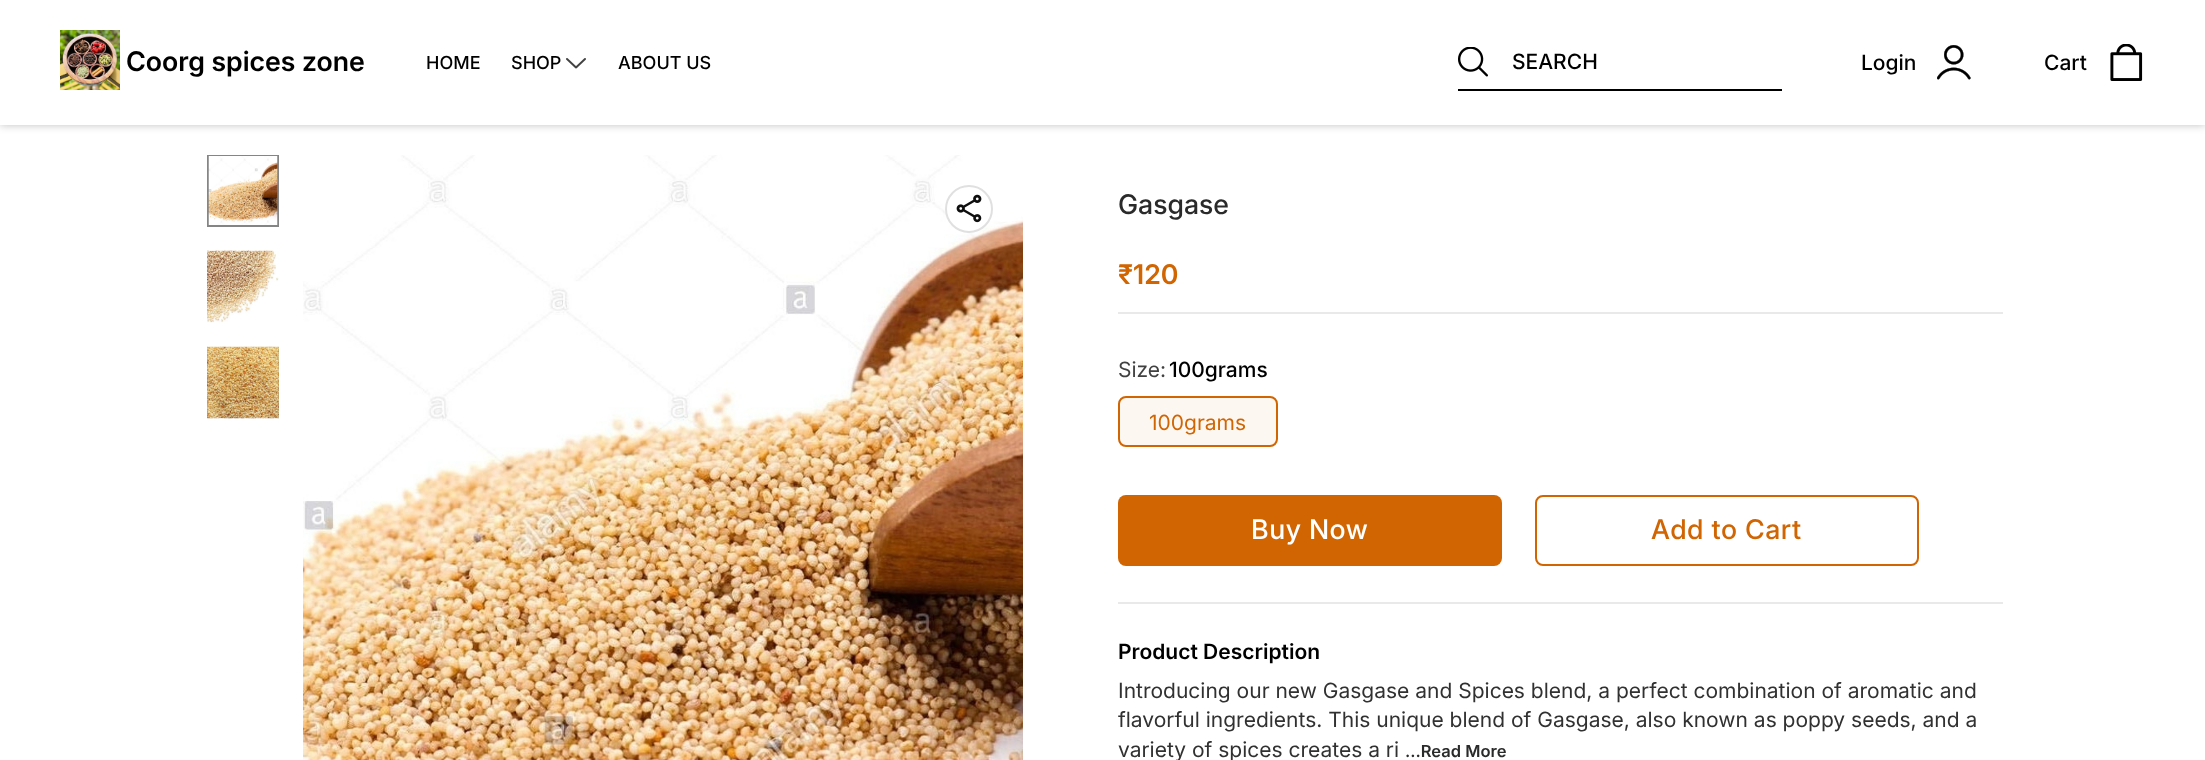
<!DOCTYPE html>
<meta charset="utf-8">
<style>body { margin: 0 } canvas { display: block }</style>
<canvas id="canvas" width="2205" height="760"></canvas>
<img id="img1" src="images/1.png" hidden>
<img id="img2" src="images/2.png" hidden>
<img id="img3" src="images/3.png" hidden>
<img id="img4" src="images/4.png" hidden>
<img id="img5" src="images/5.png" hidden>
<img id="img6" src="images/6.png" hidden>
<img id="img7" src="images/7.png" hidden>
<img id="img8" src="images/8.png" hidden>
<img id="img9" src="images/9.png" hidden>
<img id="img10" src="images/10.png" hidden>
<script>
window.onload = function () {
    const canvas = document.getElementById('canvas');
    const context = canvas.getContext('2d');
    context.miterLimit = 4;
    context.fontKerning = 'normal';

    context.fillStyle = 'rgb(255, 255, 255)';
    context.fillRect(0, 0, 2205, 760);
    context.fillStyle = 'rgba(0, 0, 0, 0.25)';
    context.filter = 'blur(4px)';
    context.beginPath();
    context.rect(0, 0, 2205, 125);
    context.fill();
    context.filter = 'none';
    context.fillStyle = 'rgb(255, 255, 255)';
    context.fillRect(0, 0, 2205, 125);
    context.drawImage(document.getElementById('img1'), 60, 30, 60, 60);
    context.drawImage(document.getElementById('img2'), 566, 58, 20, 11);
    context.fillStyle = 'rgb(0, 0, 0)';
    context.fillRect(1458, 89, 324, 2);
    context.drawImage(document.getElementById('img3'), 1458, 47, 30, 30);
    context.drawImage(document.getElementById('img4'), 1937, 45, 34, 35);
    context.drawImage(document.getElementById('img5'), 2110, 44, 33, 37);
    context.strokeStyle = 'rgb(133, 133, 133)';
    context.lineWidth = 2;
    context.strokeRect(208, 156, 70, 70);
    context.drawImage(document.getElementById('img6'), 208, 156, 70, 69);
    context.drawImage(document.getElementById('img7'), 207, 250, 72, 73);
    context.drawImage(document.getElementById('img8'), 207, 346, 72, 73);
    context.drawImage(document.getElementById('img9'), 303, 155, 720, 605);
    context.fillStyle = 'rgb(255, 255, 255)';
    context.beginPath();
    context.arc(969, 209, 23, 0, 2 * Math.PI);
    context.fill();
    context.strokeStyle = 'rgb(224, 224, 224)';
    context.stroke();
    context.drawImage(document.getElementById('img10'), 956, 194, 26, 29);
    context.fillStyle = 'rgb(233, 233, 233)';
    context.fillRect(1118, 312, 885, 2);
    context.fillRect(1118, 602, 885, 2);
    context.fillStyle = 'rgb(253, 247, 242)';
    context.beginPath();
    context.roundRect(1119, 397, 158, 49, 7);
    context.fill();
    context.strokeStyle = 'rgb(208, 101, 2)';
    context.stroke();
    context.fillStyle = 'rgb(208, 101, 2)';
    context.beginPath();
    context.roundRect(1118, 495, 384, 71, 8);
    context.fill();
    context.beginPath();
    context.roundRect(1536, 496, 382, 69, 7);
    context.stroke();
    context.font = '600 27px Inter';
    context.fillStyle = 'rgb(0, 0, 0)';
    context.fillText('Coorg spices zone', 126, 71);
    context.font = '500 18px "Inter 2"';
    context.fillText('HOME', 426, 69);
    context.fillText('SHOP', 511, 69);
    context.fillText('ABOUT US', 618, 69);
    context.font = '500 21px "Inter 2"';
    context.fillText('SEARCH', 1512, 69);
    context.fillText('Login', 1861, 70);
    context.fillText('Cart', 2044, 70);
    context.font = '500 27px Inter';
    context.fillStyle = 'rgb(42, 42, 42)';
    context.fillText('Gasgase', 1118, 214);
    context.font = '600 27px Inter';
    context.fillStyle = 'rgb(208, 101, 2)';
    context.fillText('₹120', 1118, 284);
    context.font = '21px Inter';
    context.fillStyle = 'rgb(65, 65, 65)';
    context.fillText('Size:', 1118, 377);
    context.font = '500 21px "Inter 2"';
    context.fillStyle = 'rgb(0, 0, 0)';
    context.fillText('100grams', 1169, 377);
    context.font = '21px Inter';
    context.fillStyle = 'rgb(208, 101, 2)';
    context.fillText('100grams', 1149, 430);
    context.letterSpacing = '0.5px';
    context.font = '500 27px Inter';
    context.fillStyle = 'rgb(255, 255, 255)';
    context.fillText('Buy Now', 1251, 539);
    context.fillStyle = 'rgb(208, 101, 2)';
    context.fillText('Add to Cart', 1651, 539);
    context.letterSpacing = '0px';
    context.font = '600 21px "Inter 2"';
    context.fillStyle = 'rgb(0, 0, 0)';
    context.fillText('Product Description', 1118, 659);
    context.font = '21px Inter';
    context.fillStyle = 'rgb(49, 49, 49)';
    context.fillText('Introducing our new Gasgase and Spices blend, a perfect combination of aromatic and', 1118, 698);
    context.fillText('flavorful ingredients. This unique blend of Gasgase, also known as poppy seeds, and a', 1118, 727);
    context.fillText('variety of spices creates a ri', 1118, 757);
    context.font = '600 16.5px "Inter 2"';
    context.fillStyle = 'rgb(42, 42, 42)';
    context.fillText('...Read More', 1405, 757);
};
</script>
